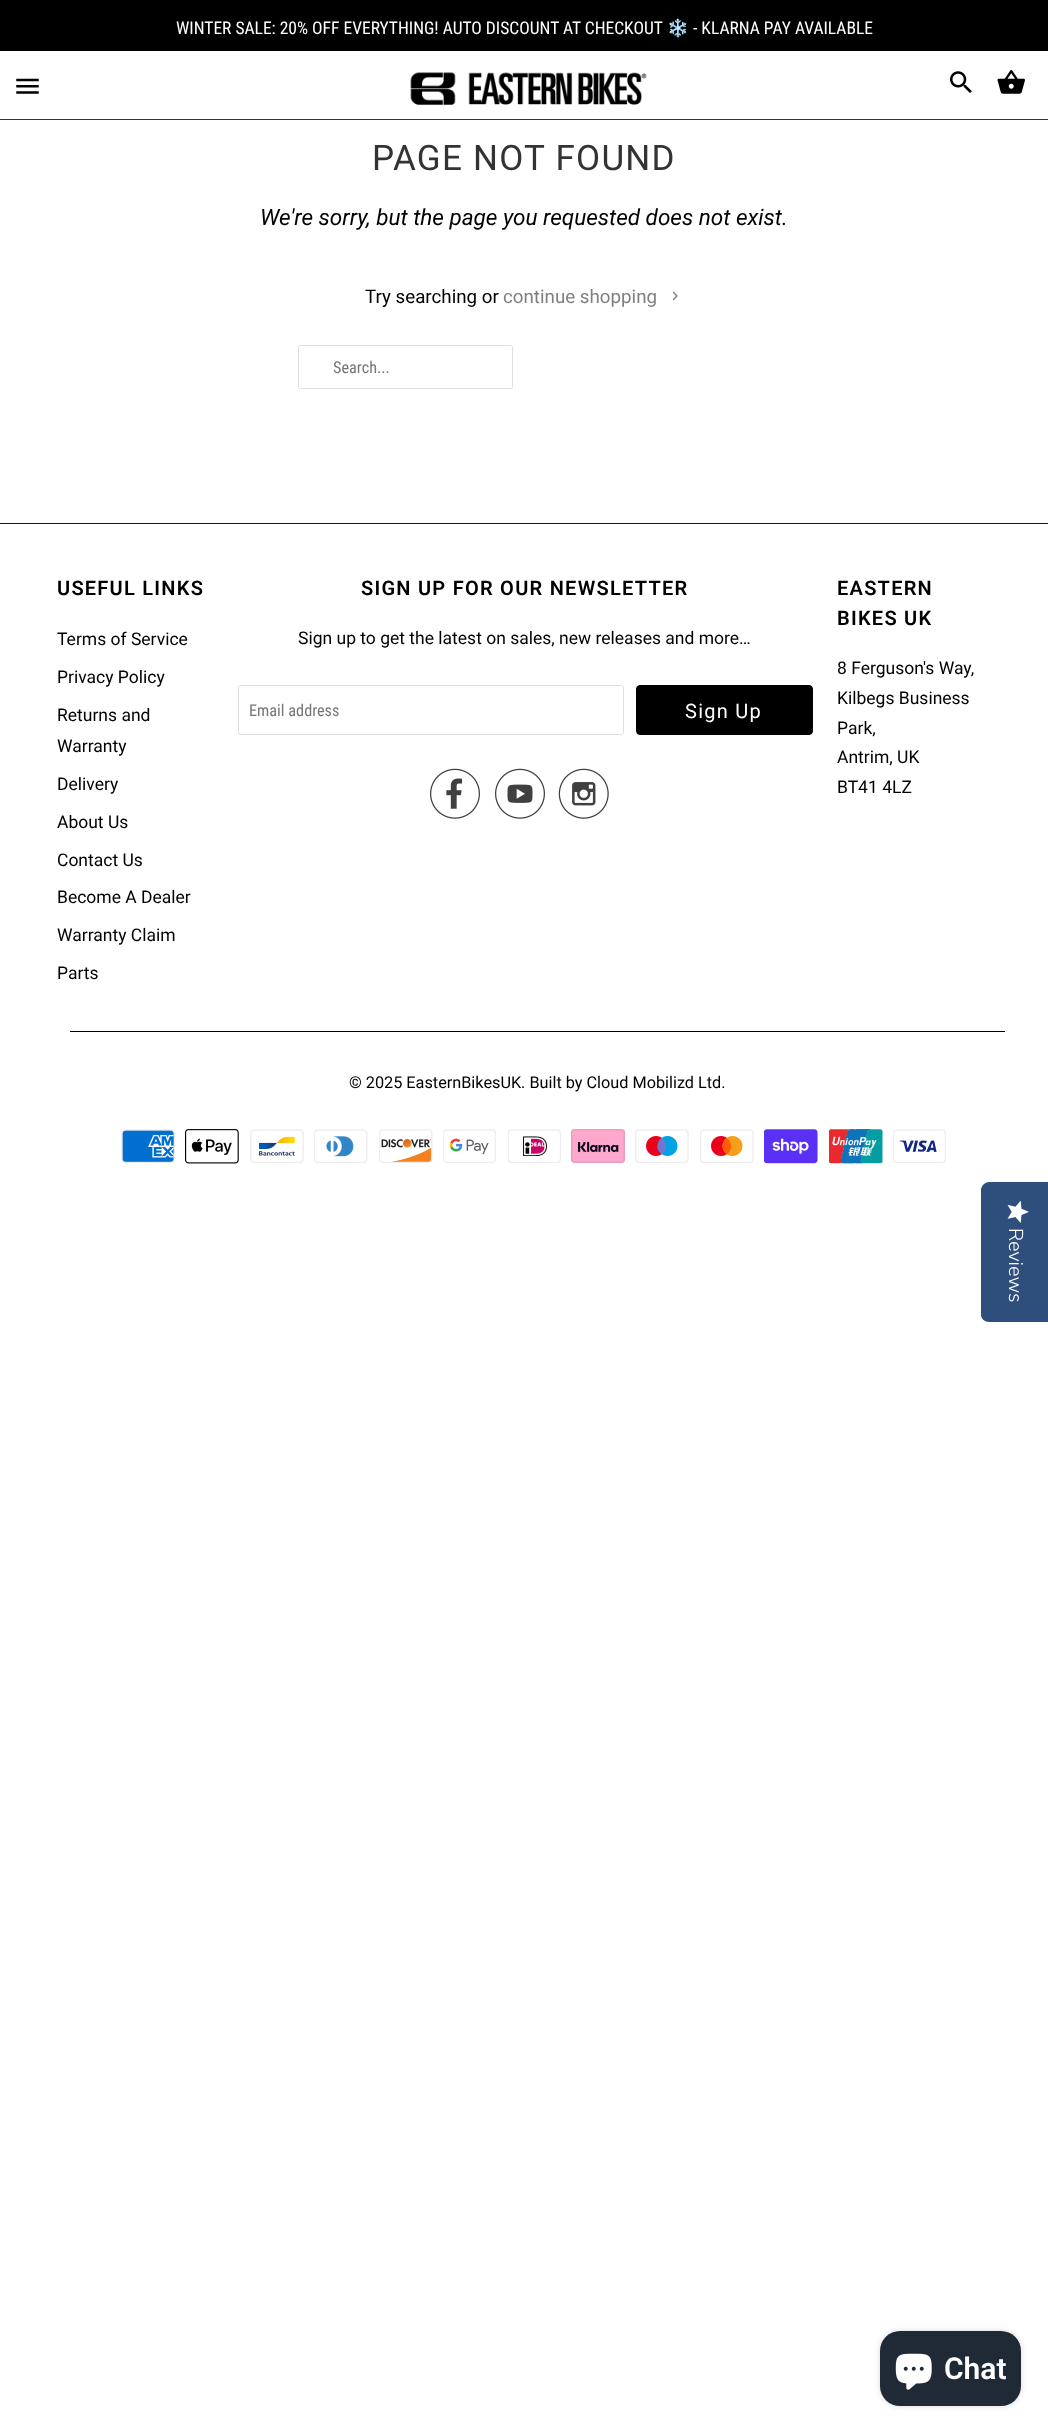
<!DOCTYPE html>
<meta charset="utf-8">
<style>body { margin: 0 } canvas { display: block }</style>
<canvas id="canvas" width="1048" height="2432"></canvas>
<img id="img1" src="images/1.png" hidden>
<img id="img2" src="images/2.png" hidden>
<img id="img3" src="images/3.png" hidden>
<img id="img4" src="images/4.png" hidden>
<img id="img5" src="images/5.png" hidden>
<img id="img6" src="images/6.png" hidden>
<img id="img7" src="images/7.png" hidden>
<img id="img8" src="images/8.png" hidden>
<img id="img9" src="images/9.png" hidden>
<img id="img10" src="images/10.png" hidden>
<img id="img11" src="images/11.png" hidden>
<img id="img12" src="images/12.png" hidden>
<img id="img13" src="images/13.png" hidden>
<img id="img14" src="images/14.png" hidden>
<img id="img15" src="images/15.png" hidden>
<img id="img16" src="images/16.png" hidden>
<img id="img17" src="images/17.png" hidden>
<img id="img18" src="images/18.png" hidden>
<img id="img19" src="images/19.png" hidden>
<img id="img20" src="images/20.png" hidden>
<img id="img21" src="images/21.png" hidden>
<img id="img22" src="images/22.png" hidden>
<img id="img23" src="images/23.png" hidden>
<script>
window.onload = function () {
    const canvas = document.getElementById('canvas');
    const context = canvas.getContext('2d');
    context.miterLimit = 4;
    context.fontKerning = 'normal';

    context.fillStyle = 'rgb(255, 255, 255)';
    context.fillRect(0, 0, 1048, 2432);
    context.fillStyle = 'rgb(51, 51, 51)';
    context.fillRect(0, 119, 1048, 1);
    context.fillStyle = 'rgb(0, 0, 0)';
    context.fillRect(0, 0, 1048, 51);
    context.drawImage(document.getElementById('img1'), 16, 78, 23, 16);
    context.drawImage(document.getElementById('img2'), 410, 72, 237, 33);
    context.drawImage(document.getElementById('img3'), 950, 71, 22, 22);
    context.drawImage(document.getElementById('img4'), 997, 70, 28, 24);
    context.drawImage(document.getElementById('img5'), 672, 291, 6, 10);
    context.beginPath();
    context.roundRect(298.5, 345.5, 214, 43, 2);
    context.strokeStyle = 'rgb(223, 223, 223)';
    context.stroke();
    context.fillStyle = 'rgb(22, 22, 22)';
    context.fillRect(0, 523, 1048, 1);
    context.beginPath();
    context.roundRect(238.5, 685.5, 385, 49, 2);
    context.stroke();
    context.fillStyle = 'rgb(0, 0, 0)';
    context.beginPath();
    context.roundRect(636.5, 685.5, 176, 49, 3.5);
    context.fill();
    context.strokeStyle = 'rgb(0, 0, 0)';
    context.stroke();
    context.drawImage(document.getElementById('img6'), 430, 768, 50, 51);
    context.drawImage(document.getElementById('img7'), 495, 768, 50, 51);
    context.drawImage(document.getElementById('img8'), 558, 768, 51, 51);
    context.fillRect(70, 1031, 935, 1);
    context.drawImage(document.getElementById('img9'), 121, 1129, 54, 34);
    context.drawImage(document.getElementById('img10'), 185, 1129, 54, 35);
    context.drawImage(document.getElementById('img11'), 250, 1129, 54, 34);
    context.drawImage(document.getElementById('img12'), 314, 1129, 54, 34);
    context.drawImage(document.getElementById('img13'), 379, 1129, 54, 34);
    context.drawImage(document.getElementById('img14'), 443, 1129, 53, 34);
    context.drawImage(document.getElementById('img15'), 508, 1129, 53, 34);
    context.drawImage(document.getElementById('img16'), 571, 1129, 54, 34);
    context.drawImage(document.getElementById('img17'), 635, 1129, 54, 34);
    context.drawImage(document.getElementById('img18'), 700, 1129, 54, 34);
    context.drawImage(document.getElementById('img19'), 764, 1129, 54, 35);
    context.drawImage(document.getElementById('img20'), 829, 1129, 54, 35);
    context.drawImage(document.getElementById('img21'), 893, 1129, 53, 34);
    context.fillStyle = 'rgb(46, 79, 124)';
    context.beginPath();
    context.moveTo(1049, 1182);
    context.lineTo(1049, 1322);
    context.lineTo(989, 1322);
    context.bezierCurveTo(985, 1322, 981, 1319, 981, 1315);
    context.lineTo(981, 1190);
    context.bezierCurveTo(981, 1186, 985, 1182, 989, 1182);
    context.closePath();
    context.fill();
    context.drawImage(document.getElementById('img22'), 1007, 1200, 22, 23);
    context.fillStyle = 'rgba(0, 0, 0, 0.15)';
    context.filter = 'blur(3px)';
    context.beginPath();
    context.roundRect(880, 2331, 141, 75, 20);
    context.fill();
    context.filter = 'none';
    context.fillStyle = 'rgb(32, 42, 54)';
    context.beginPath();
    context.roundRect(880, 2331, 141, 75, 20);
    context.fill();
    context.drawImage(document.getElementById('img23'), 895, 2353, 37, 37);
    context.font = '17.5px ROBOTO CONDENSED';
    context.fillStyle = 'rgb(255, 255, 255)';
    context.fillText('WINTER SALE: 20% OFF EVERYTHING! AUTO DISCOUNT AT CHECKOUT', 176, 34);
    context.font = '17.5px Noto Color Emoji';
    context.fillText('❄️', 667, 34);
    context.font = '17.5px ROBOTO CONDENSED';
    context.fillText('- KLARNA PAY AVAILABLE', 693, 34);
    context.letterSpacing = '1.25px';
    context.font = '35px Roboto';
    context.fillStyle = 'rgb(51, 51, 51)';
    context.fillText('PAGE NOT FOUND', 372, 170);
    context.letterSpacing = '0px';
    context.font = 'italic 22.5px Roboto';
    context.fillStyle = 'rgb(0, 0, 0)';
    context.fillText('We\'re sorry, but the page you requested does not exist.', 260, 225);
    context.font = '18.75px Roboto';
    context.fillText('Try searching or', 365, 303);
    context.fillStyle = 'rgb(128, 128, 128)';
    context.fillText('continue shopping', 503, 303);
    context.font = '16.25px ROBOTO CONDENSED';
    context.fillStyle = 'rgb(117, 117, 117)';
    context.fillText('Search...', 333, 373);
    context.letterSpacing = '1.25px';
    context.font = '600 20px Roboto';
    context.fillStyle = 'rgb(0, 0, 0)';
    context.fillText('USEFUL LINKS', 57, 595);
    context.letterSpacing = '0px';
    context.font = '17.5px Roboto';
    context.fillText('Terms of Service', 57, 645);
    context.fillText('Privacy Policy', 57, 683);
    context.fillText('Returns and', 57, 721);
    context.fillText('Warranty', 57, 752);
    context.fillText('Delivery', 57, 790);
    context.fillText('About Us', 57, 828);
    context.fillText('Contact Us', 57, 866);
    context.fillText('Become A Dealer', 57, 903);
    context.fillText('Warranty Claim', 57, 941);
    context.fillText('Parts', 57, 979);
    context.letterSpacing = '1.25px';
    context.font = '600 20px Roboto';
    context.fillText('SIGN UP FOR OUR NEWSLETTER', 361, 595);
    context.letterSpacing = '0px';
    context.font = '17.5px Roboto';
    context.fillText('Sign up to get the latest on sales, new releases and more…', 298, 644);
    context.font = '16.25px ROBOTO CONDENSED';
    context.fillStyle = 'rgb(117, 117, 117)';
    context.fillText('Email address', 249, 716);
    context.letterSpacing = '1.25px';
    context.font = '20px Roboto';
    context.fillStyle = 'rgb(255, 255, 255)';
    context.fillText('Sign Up', 685, 718);
    context.font = '600 20px Roboto';
    context.fillStyle = 'rgb(0, 0, 0)';
    context.fillText('EASTERN', 837, 595);
    context.fillText('BIKES UK', 837, 625);
    context.letterSpacing = '0px';
    context.font = '17.5px Roboto';
    context.fillText('8 Ferguson\'s Way,', 837, 674);
    context.fillText('Kilbegs Business', 837, 704);
    context.fillText('Park,', 837, 734);
    context.fillText('Antrim, UK', 837, 763);
    context.fillText('BT41 4LZ', 837, 793);
    context.font = '16.25px Roboto';
    context.fillText('© 2025 EasternBikesUK. Built by Cloud Mobilizd Ltd.', 349, 1088);
    context.font = '300 20px Nunito Sans';
    context.fillStyle = 'rgb(255, 255, 255)';
    context.save();
    context.translate(1009, 1228);
    context.rotate(90 * Math.PI / 180);
    context.fillText('Reviews', 0, 0);
    context.restore();
    context.font = '600 30px Roboto';
    context.fillText('Chat', 944, 2379);
};
</script>
